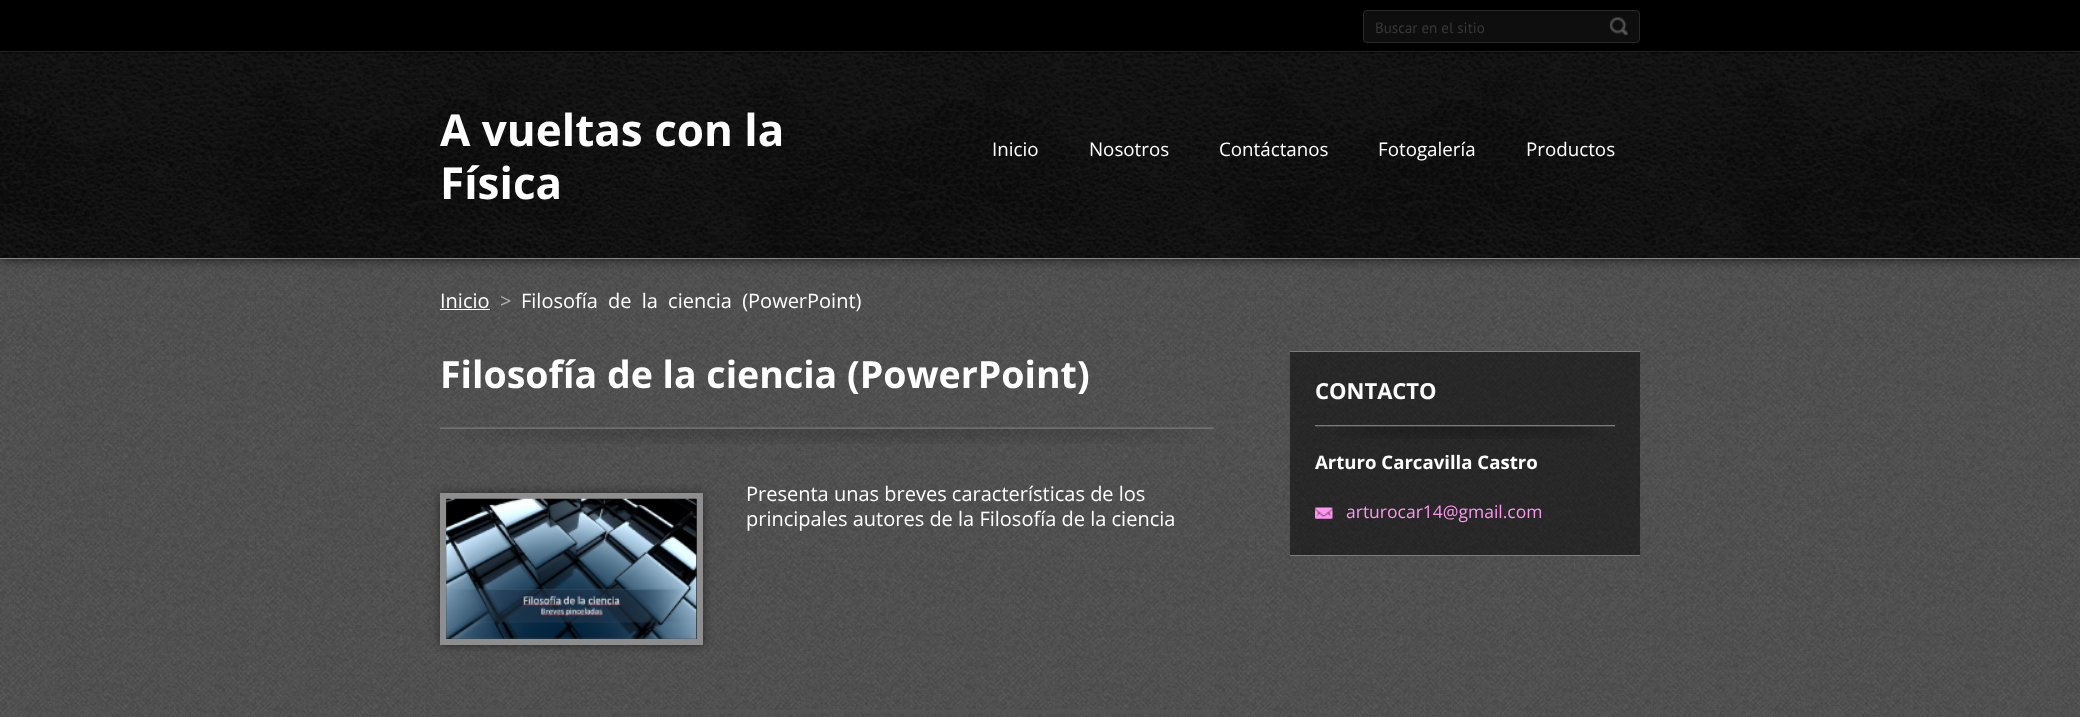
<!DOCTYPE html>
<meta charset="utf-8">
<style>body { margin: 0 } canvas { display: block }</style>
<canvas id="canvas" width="2080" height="717"></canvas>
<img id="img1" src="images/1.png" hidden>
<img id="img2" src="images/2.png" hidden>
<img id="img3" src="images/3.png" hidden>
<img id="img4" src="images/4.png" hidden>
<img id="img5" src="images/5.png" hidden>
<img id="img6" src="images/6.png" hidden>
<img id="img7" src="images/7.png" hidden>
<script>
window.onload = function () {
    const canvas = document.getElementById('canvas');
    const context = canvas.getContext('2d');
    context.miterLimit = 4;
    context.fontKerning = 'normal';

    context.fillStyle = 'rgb(255, 255, 255)';
    context.fillRect(0, 0, 2080, 717);
    context.drawImage(document.getElementById('img1'), 0, 259, 2080, 458);
    context.fillStyle = 'rgb(0, 0, 0)';
    context.fillRect(0, 0, 2080, 53);
    context.fillStyle = 'rgb(48, 48, 48)';
    context.fillRect(0, 51, 2080, 1);
    context.fillStyle = 'rgba(0, 0, 0, 0.7)';
    context.filter = 'blur(6px)';
    context.beginPath();
    context.rect(0, 53, 2080, 206);
    context.fill();
    context.filter = 'none';
    context.fillStyle = 'rgb(14, 14, 14)';
    context.beginPath();
    context.roundRect(1363.5, 10.5, 276, 32, 3.5);
    context.fill();
    context.strokeStyle = 'rgb(41, 41, 41)';
    context.stroke();
    context.drawImage(document.getElementById('img2'), 1609, 17, 19, 19);
    context.drawImage(document.getElementById('img3'), 0, 52, 2080, 206);
    context.fillStyle = 'rgb(138, 138, 138)';
    context.fillRect(0, 258, 2080, 1);
    context.fillStyle = 'rgb(255, 255, 255)';
    context.fillRect(440, 309, 50, 1);
    context.drawImage(document.getElementById('img4'), 440, 427, 774, 17);
    context.fillStyle = 'rgb(82, 82, 82)';
    context.fillRect(440, 710, 775, 3);
    context.fillStyle = 'rgba(0, 0, 0, 0.5)';
    context.filter = 'blur(5px)';
    context.beginPath();
    context.rect(440, 493, 263, 152);
    context.fill();
    context.filter = 'none';
    context.strokeStyle = 'rgb(142, 142, 142)';
    context.lineWidth = 6;
    context.strokeRect(443, 496, 257, 146);
    context.drawImage(document.getElementById('img5'), 446, 498, 251, 141);
    context.fillRect(1290, 352, 350, 203);
    context.fillStyle = 'rgb(124, 124, 124)';
    context.fillRect(1290, 351, 350, 1);
    context.fillRect(1290, 555, 350, 1);
    context.drawImage(document.getElementById('img6'), 1315, 425, 300, 14);
    context.drawImage(document.getElementById('img7'), 1315, 507, 18, 12);
    context.font = '15px PT Sans';
    context.fillStyle = 'rgb(56, 56, 56)';
    context.fillText('Buscar en el sitio', 1375, 33);
    context.font = 'bold 44px Open Sans';
    context.fillStyle = 'rgb(255, 255, 255)';
    context.fillText('A vueltas con la', 440, 146);
    context.fillText('Física', 440, 199);
    context.font = '18.75px Open Sans';
    context.fillText('Inicio', 992, 156);
    context.fillText('Nosotros', 1089, 156);
    context.fillText('Contáctanos', 1219, 156);
    context.fillText('Fotogalería', 1378, 156);
    context.fillText('Productos', 1526, 156);
    context.font = '20px Open Sans';
    context.fillText('Inicio', 440, 308);
    context.fillStyle = 'rgb(179, 179, 179)';
    context.fillText('>', 500, 308);
    context.wordSpacing = '5px';
    context.fillStyle = 'rgb(255, 255, 255)';
    context.fillText('Filosofía de la ciencia (PowerPoint)', 521, 308);
    context.wordSpacing = '0px';
    context.font = 'bold 37.5px Open Sans';
    context.fillText('Filosofía de la ciencia (PowerPoint)', 440, 388);
    context.font = '20px Open Sans';
    context.fillText('Presenta unas breves características de los', 746, 501);
    context.fillText('principales autores de la Filosofía de la ciencia', 746, 526);
    context.font = 'bold 22px Open Sans';
    context.fillText('CONTACTO', 1315, 399);
    context.font = 'bold 18.6px Open Sans';
    context.fillText('Arturo Carcavilla Castro', 1315, 469);
    context.font = '17.5px Open Sans';
    context.fillStyle = 'rgb(255, 150, 240)';
    context.fillText('arturocar14@gmail.com', 1346, 518);
};
</script>
